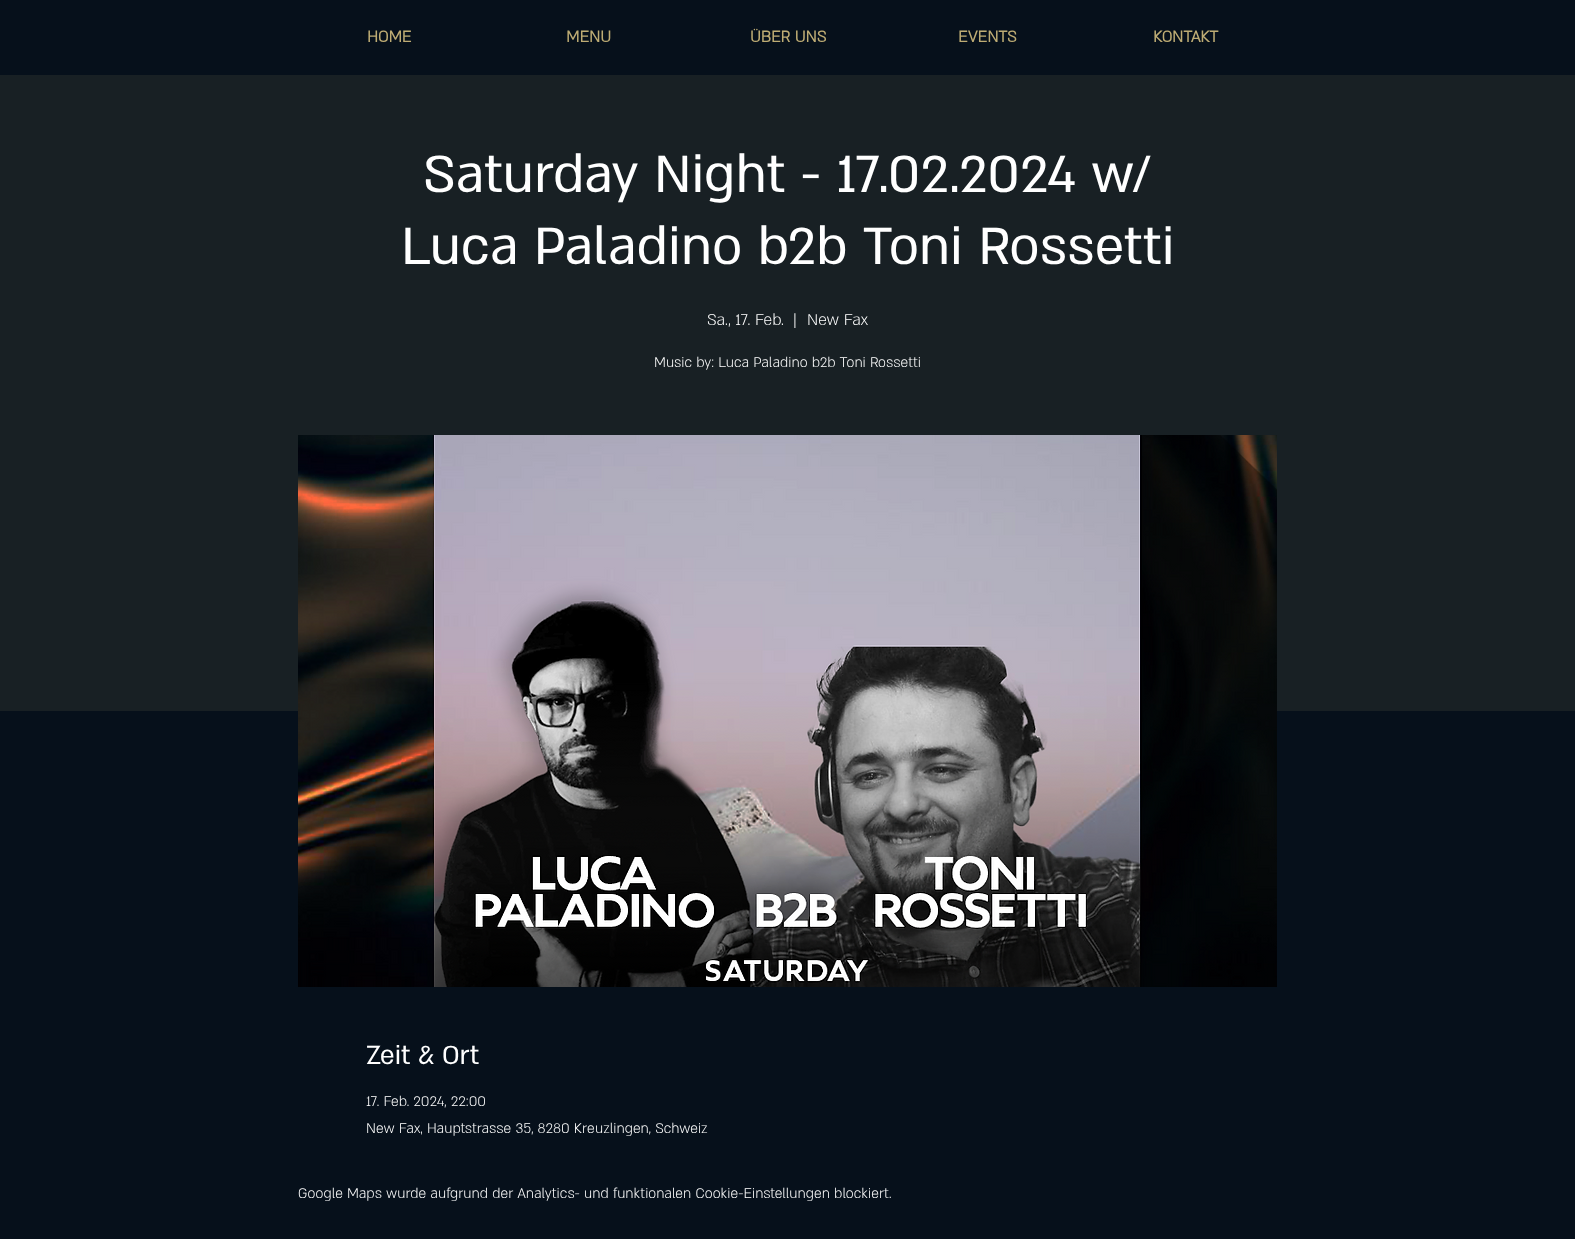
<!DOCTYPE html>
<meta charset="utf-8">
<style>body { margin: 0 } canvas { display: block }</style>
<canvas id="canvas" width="1575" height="1239"></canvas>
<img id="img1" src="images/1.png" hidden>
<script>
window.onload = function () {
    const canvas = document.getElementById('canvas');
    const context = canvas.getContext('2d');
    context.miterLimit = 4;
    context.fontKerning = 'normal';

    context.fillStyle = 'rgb(6, 16, 27)';
    context.fillRect(0, 0, 1575, 1239);
    context.fillStyle = 'rgb(24, 32, 36)';
    context.fillRect(0, 75, 1575, 636);
    context.drawImage(document.getElementById('img1'), 298, 435, 979, 552);
    context.font = 'bold 18px "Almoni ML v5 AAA"';
    context.fillStyle = 'rgb(190, 172, 116)';
    context.fillText('HOME', 367, 42);
    context.fillText('MENU', 566, 42);
    context.fillText('ÜBER UNS', 750, 42);
    context.fillText('EVENTS', 958, 42);
    context.fillText('KONTAKT', 1153, 42);
    context.font = '60px "Almoni ML v5 AAA"';
    context.fillStyle = 'rgb(255, 255, 255)';
    context.fillText('Saturday Night - 17.02.2024 w/', 423, 192);
    context.fillText('Luca Paladino b2b Toni Rossetti', 401, 264);
    context.font = '300 18px "Almoni ML v5 AAA"';
    context.fillText('Sa., 17. Feb.', 707, 325);
    context.fillText('|', 793, 325);
    context.fillText('New Fax', 807, 325);
    context.font = '300 16px "Almoni ML v5 AAA"';
    context.fillText('Music by: Luca Paladino b2b Toni Rossetti', 654, 367);
    context.font = '30px "Almoni ML v5 AAA"';
    context.fillText('Zeit & Ort', 366, 1064);
    context.font = '300 16px "Almoni ML v5 AAA"';
    context.fillText('17. Feb. 2024, 22:00', 366, 1106);
    context.fillText('New Fax, Hauptstrasse 35, 8280 Kreuzlingen, Schweiz', 366, 1133);
    context.fillText('Google Maps wurde aufgrund der Analytics- und funktionalen Cookie-Einstellungen blockiert.', 298, 1198);
};
</script>
